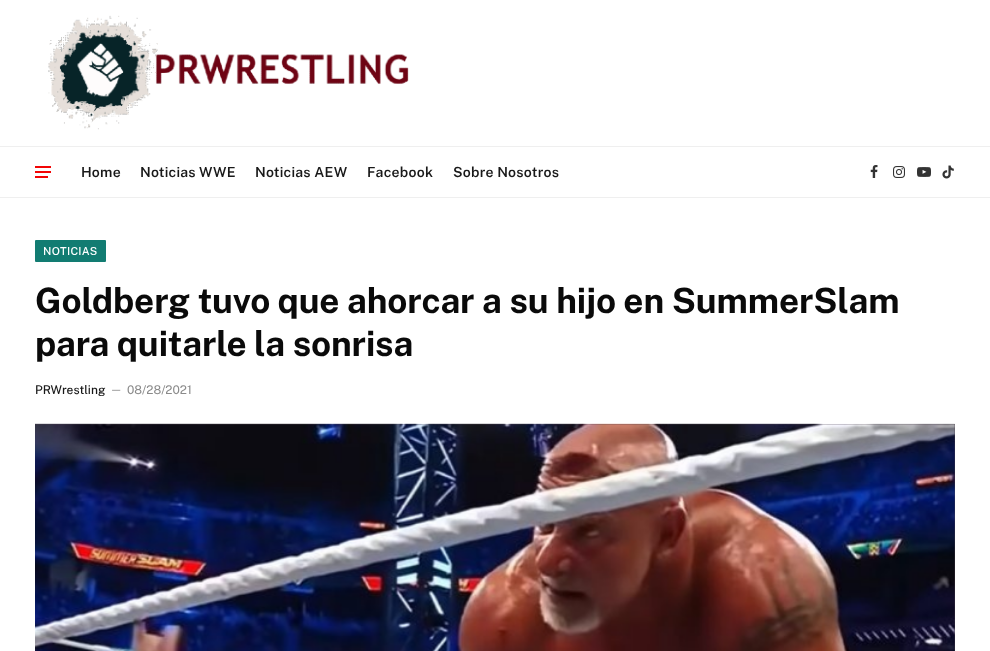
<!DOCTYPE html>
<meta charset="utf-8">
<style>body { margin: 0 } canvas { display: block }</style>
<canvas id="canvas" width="990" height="651"></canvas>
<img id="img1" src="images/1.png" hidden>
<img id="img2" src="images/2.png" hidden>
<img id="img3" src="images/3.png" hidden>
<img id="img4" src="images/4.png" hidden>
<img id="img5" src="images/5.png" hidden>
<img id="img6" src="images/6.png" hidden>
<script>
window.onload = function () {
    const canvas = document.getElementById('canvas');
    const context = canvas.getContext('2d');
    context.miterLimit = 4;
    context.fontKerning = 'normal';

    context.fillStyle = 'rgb(255, 255, 255)';
    context.fillRect(0, 0, 990, 651);
    context.drawImage(document.getElementById('img1'), 48, 15, 361, 115);
    context.fillStyle = 'rgb(239, 239, 239)';
    context.fillRect(0, 146, 990, 1);
    context.fillRect(0, 197, 990, 1);
    context.fillStyle = 'rgb(242, 5, 5)';
    context.fillRect(35, 176, 13, 2);
    context.fillRect(35, 166, 16, 2);
    context.fillRect(35, 171, 16, 2);
    context.drawImage(document.getElementById('img2'), 870, 165, 8, 13);
    context.drawImage(document.getElementById('img3'), 893, 166, 12, 12);
    context.drawImage(document.getElementById('img4'), 917, 167, 14, 10);
    context.drawImage(document.getElementById('img5'), 942, 165, 12, 14);
    context.fillStyle = 'rgb(18, 124, 114)';
    context.beginPath();
    context.roundRect(35, 240, 71, 22, 1);
    context.fill();
    context.fillStyle = 'rgb(78, 64, 77)';
    context.fillRect(35, 424, 920, 227);
    context.drawImage(document.getElementById('img6'), 35, 423, 920, 228);
    context.letterSpacing = '0.25px';
    context.font = '600 14px Public Sans';
    context.fillStyle = 'rgb(25, 25, 25)';
    context.fillText('Home', 81, 177);
    context.fillText('Noticias WWE', 140, 177);
    context.fillText('Noticias AEW', 255, 177);
    context.fillText('Facebook', 367, 177);
    context.fillText('Sobre Nosotros', 453, 177);
    context.font = '500 11px Public Sans';
    context.fillStyle = 'rgb(255, 255, 255)';
    context.fillText('NOTICIAS', 43, 255);
    context.letterSpacing = '-0.15px';
    context.font = 'bold 35px Public Sans';
    context.fillStyle = 'rgb(10, 10, 10)';
    context.fillText('Goldberg tuvo que ahorcar a su hijo en SummerSlam', 35, 313);
    context.fillText('para quitarle la sonrisa', 35, 356);
    context.letterSpacing = '0px';
    context.font = '500 12px Public Sans';
    context.fillStyle = 'rgb(25, 25, 25)';
    context.fillText('PRWrestling', 35, 394);
    context.font = '11px Public Sans';
    context.fillStyle = 'rgb(138, 138, 138)';
    context.fillText('—', 110, 393);
    context.font = '12px Public Sans';
    context.fillText('08/28/2021', 127, 394);
};
</script>
